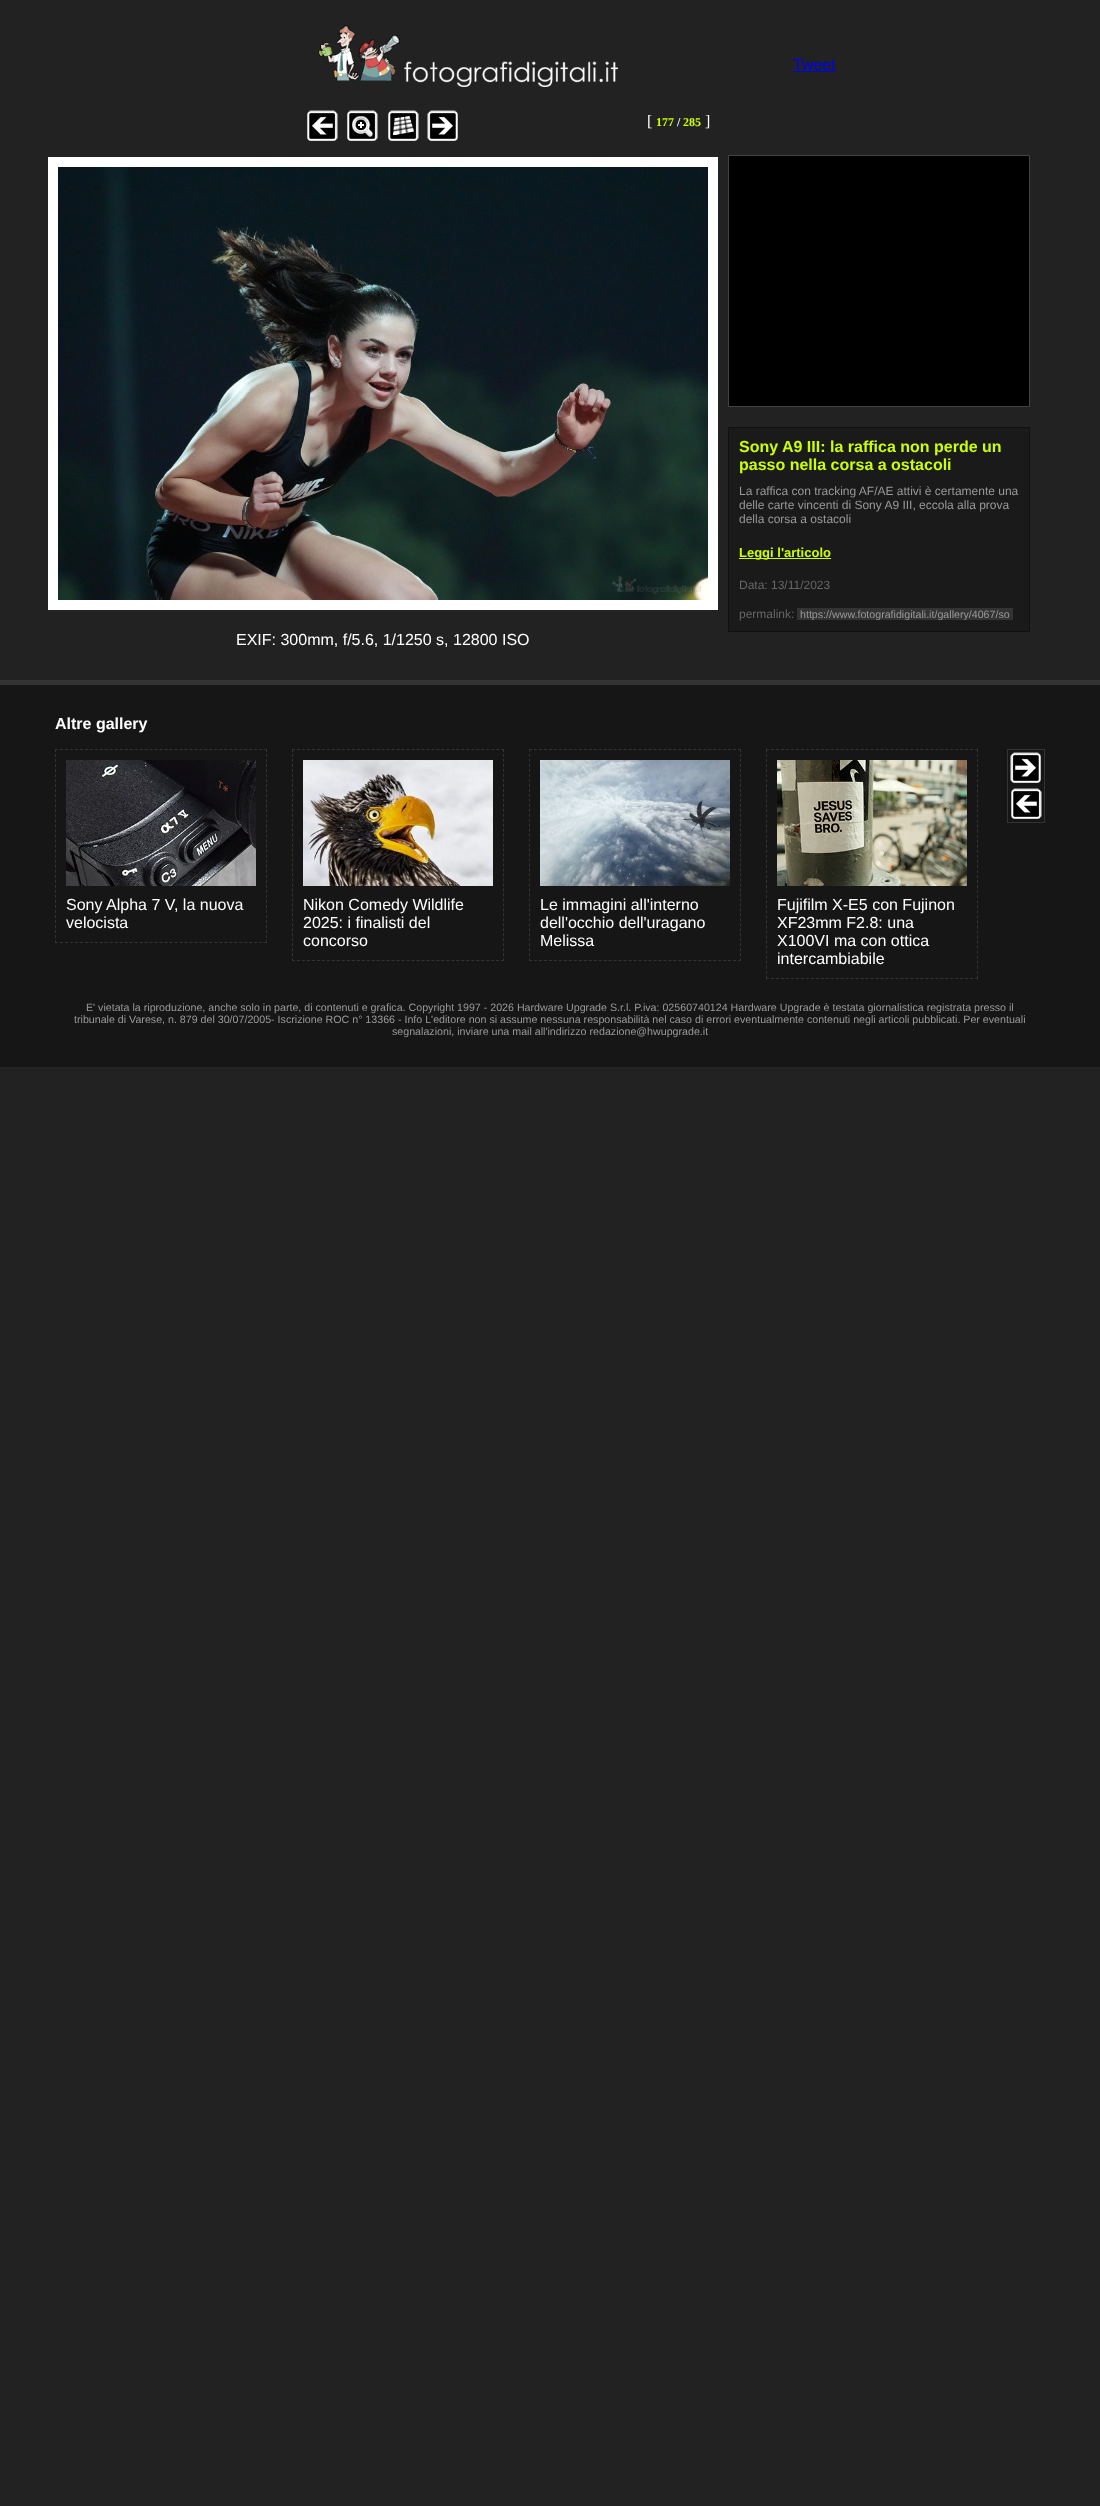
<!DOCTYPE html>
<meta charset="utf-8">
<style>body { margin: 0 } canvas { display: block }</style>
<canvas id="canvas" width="1100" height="2506"></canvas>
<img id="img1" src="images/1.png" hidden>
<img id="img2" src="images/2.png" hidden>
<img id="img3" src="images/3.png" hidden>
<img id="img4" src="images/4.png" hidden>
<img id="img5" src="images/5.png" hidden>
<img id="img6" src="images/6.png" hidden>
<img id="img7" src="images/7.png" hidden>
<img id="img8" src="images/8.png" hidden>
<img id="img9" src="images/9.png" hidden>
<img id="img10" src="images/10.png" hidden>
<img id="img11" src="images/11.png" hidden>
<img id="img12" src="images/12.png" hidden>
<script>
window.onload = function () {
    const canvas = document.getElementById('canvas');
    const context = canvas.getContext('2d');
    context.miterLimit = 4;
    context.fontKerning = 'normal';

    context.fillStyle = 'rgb(34, 34, 34)';
    context.fillRect(0, 0, 1100, 2506);
    context.drawImage(document.getElementById('img1'), 318, 25, 300, 62);
    context.fillStyle = 'rgb(0, 0, 238)';
    context.fillRect(793, 71, 42, 1);
    context.fillStyle = 'rgb(0, 0, 0)';
    context.beginPath();
    context.rect(728.5, 155.5, 301, 251);
    context.fill();
    context.strokeStyle = 'rgb(68, 68, 68)';
    context.stroke();
    context.fillStyle = 'rgb(26, 26, 26)';
    context.beginPath();
    context.rect(728.5, 427.5, 301, 204);
    context.fill();
    context.strokeStyle = 'rgb(17, 17, 17)';
    context.stroke();
    context.fillStyle = 'rgb(204, 255, 0)';
    context.fillRect(739, 558, 92, 1);
    context.fillStyle = 'rgb(51, 51, 51)';
    context.fillRect(797, 608, 216, 12);
    context.drawImage(document.getElementById('img2'), 307, 110, 31, 31);
    context.drawImage(document.getElementById('img3'), 347, 110, 31, 31);
    context.drawImage(document.getElementById('img4'), 388, 110, 31, 31);
    context.drawImage(document.getElementById('img5'), 427, 110, 31, 31);
    context.strokeStyle = 'rgb(255, 255, 255)';
    context.lineWidth = 10;
    context.strokeRect(53, 162, 660, 443);
    context.drawImage(document.getElementById('img6'), 58, 167, 650, 433);
    context.fillStyle = 'rgb(22, 22, 22)';
    context.fillRect(0, 685, 1100, 382);
    context.fillStyle = 'rgb(51, 51, 51)';
    context.fillRect(0, 680, 1100, 5);
    context.strokeStyle = 'rgb(51, 51, 51)';
    context.lineWidth = 1;
    context.strokeRect(1007.5, 749.5, 37, 73);
    context.drawImage(document.getElementById('img7'), 1010, 752, 31, 31);
    context.drawImage(document.getElementById('img8'), 1011, 788, 31, 31);
    context.beginPath();
    context.moveTo(55, 749.5);
    context.lineTo(267, 749.5);
    context.setLineDash([3, 1.98]);
    context.stroke();
    context.beginPath();
    context.moveTo(266.5, 749);
    context.lineTo(266.5, 943);
    context.setLineDash([3, 2.03]);
    context.stroke();
    context.beginPath();
    context.moveTo(55, 942.5);
    context.lineTo(267, 942.5);
    context.setLineDash([3, 1.98]);
    context.stroke();
    context.beginPath();
    context.moveTo(55.5, 749);
    context.lineTo(55.5, 943);
    context.setLineDash([3, 2.03]);
    context.stroke();
    context.drawImage(document.getElementById('img9'), 66, 760, 190, 126);
    context.beginPath();
    context.moveTo(292, 749.5);
    context.lineTo(504, 749.5);
    context.setLineDash([3, 1.98]);
    context.stroke();
    context.beginPath();
    context.moveTo(503.5, 749);
    context.lineTo(503.5, 961);
    context.stroke();
    context.beginPath();
    context.moveTo(292, 960.5);
    context.lineTo(504, 960.5);
    context.stroke();
    context.beginPath();
    context.moveTo(292.5, 749);
    context.lineTo(292.5, 961);
    context.stroke();
    context.drawImage(document.getElementById('img10'), 303, 760, 190, 126);
    context.beginPath();
    context.moveTo(529, 749.5);
    context.lineTo(741, 749.5);
    context.stroke();
    context.beginPath();
    context.moveTo(740.5, 749);
    context.lineTo(740.5, 961);
    context.stroke();
    context.beginPath();
    context.moveTo(529, 960.5);
    context.lineTo(741, 960.5);
    context.stroke();
    context.beginPath();
    context.moveTo(529.5, 749);
    context.lineTo(529.5, 961);
    context.stroke();
    context.drawImage(document.getElementById('img11'), 540, 760, 190, 126);
    context.beginPath();
    context.moveTo(766, 749.5);
    context.lineTo(978, 749.5);
    context.stroke();
    context.beginPath();
    context.moveTo(977.5, 749);
    context.lineTo(977.5, 979);
    context.setLineDash([3, 2.04]);
    context.stroke();
    context.beginPath();
    context.moveTo(766, 978.5);
    context.lineTo(978, 978.5);
    context.setLineDash([3, 1.98]);
    context.stroke();
    context.beginPath();
    context.moveTo(766.5, 749);
    context.lineTo(766.5, 979);
    context.setLineDash([3, 2.04]);
    context.stroke();
    context.drawImage(document.getElementById('img12'), 777, 760, 190, 126);
    context.font = '16px Liberation Sans';
    context.fillStyle = 'rgb(0, 0, 238)';
    context.fillText('Tweet', 793, 70);
    context.font = 'bold 16px Liberation Sans';
    context.fillStyle = 'rgb(204, 255, 0)';
    context.fillText('Sony A9 III: la raffica non perde un', 739, 452);
    context.fillText('passo nella corsa a ostacoli', 739, 470);
    context.font = '12px Liberation Sans';
    context.fillStyle = 'rgb(153, 153, 153)';
    context.fillText('La raffica con tracking AF/AE attivi è certamente una', 739, 495);
    context.fillText('delle carte vincenti di Sony A9 III, eccola alla prova', 739, 509);
    context.fillText('della corsa a ostacoli', 739, 523);
    context.font = 'bold 13px Liberation Sans';
    context.fillStyle = 'rgb(204, 255, 0)';
    context.fillText('Leggi l\'articolo', 739, 557);
    context.font = '12px Liberation Sans';
    context.fillStyle = 'rgb(102, 102, 102)';
    context.fillText('Data: 13/11/2023', 739, 589);
    context.fillText('permalink:', 739, 618);
    context.save();
    context.beginPath();
    context.rect(800, 608, 210, 12);
    context.clip();
    context.font = '10.67px Liberation Sans';
    context.fillStyle = 'rgb(153, 153, 153)';
    context.fillText('https://www.fotografidigitali.it/gallery/4067/so', 800, 618);
    context.restore();
    context.font = '16px Liberation Serif';
    context.fillStyle = 'rgb(255, 255, 255)';
    context.fillText('[', 647, 126);
    context.font = 'bold 12px Liberation Serif';
    context.fillStyle = 'rgb(204, 255, 0)';
    context.fillText('177', 656, 126);
    context.fillStyle = 'rgb(255, 255, 255)';
    context.fillText('/', 677, 126);
    context.fillStyle = 'rgb(204, 255, 0)';
    context.fillText('285', 683, 126);
    context.font = '16px Liberation Serif';
    context.fillStyle = 'rgb(255, 255, 255)';
    context.fillText(']', 705, 126);
    context.font = '16px Liberation Sans';
    context.fillText('EXIF: 300mm, f/5.6, 1/1250 s, 12800 ISO', 236, 645);
    context.font = 'bold 16px Liberation Sans';
    context.fillText('Altre gallery', 55, 729);
    context.font = '16px Liberation Sans';
    context.fillText('Sony Alpha 7 V, la nuova', 66, 910);
    context.fillText('velocista', 66, 928);
    context.fillText('Nikon Comedy Wildlife', 303, 910);
    context.fillText('2025: i finalisti del', 303, 928);
    context.fillText('concorso', 303, 946);
    context.fillText('Le immagini all\'interno', 540, 910);
    context.fillText('dell\'occhio dell\'uragano', 540, 928);
    context.fillText('Melissa', 540, 946);
    context.fillText('Fujifilm X-E5 con Fujinon', 777, 910);
    context.fillText('XF23mm F2.8: una', 777, 928);
    context.fillText('X100VI ma con ottica', 777, 946);
    context.fillText('intercambiabile', 777, 964);
    context.font = '10.67px Liberation Sans';
    context.fillStyle = 'rgb(153, 153, 153)';
    context.fillText('E\' vietata la riproduzione, anche solo in parte, di contenuti e grafica. Copyright 1997 - 2026 Hardware Upgrade S.r.l. P.iva: 02560740124 Hardware Upgrade è testata giornalistica registrata presso il', 86, 1011);
    context.fillText('tribunale di Varese, n. 879 del 30/07/2005- Iscrizione ROC n° 13366 - Info L\'editore non si assume nessuna responsabilità nel caso di errori eventualmente contenuti negli articoli pubblicati. Per eventuali', 74, 1023);
    context.fillText('segnalazioni, inviare una mail all\'indirizzo redazione@hwupgrade.it', 392, 1035);
};
</script>
